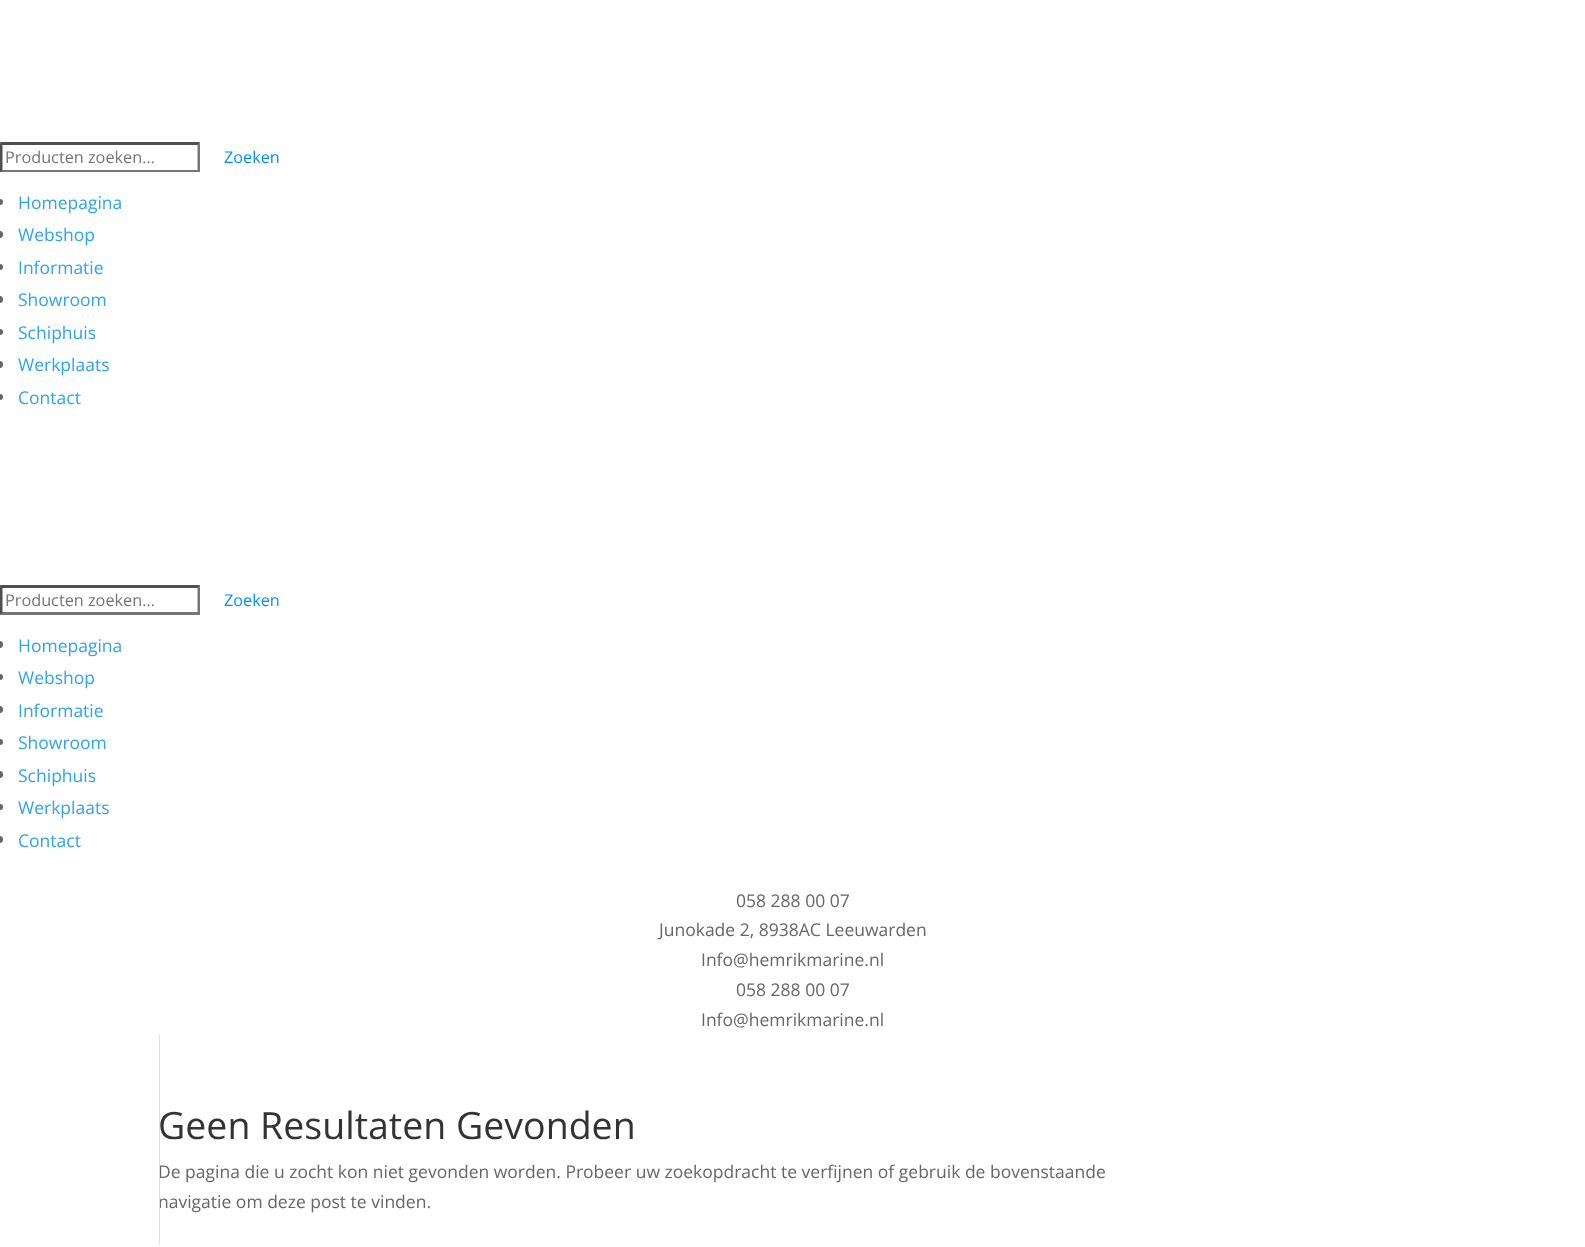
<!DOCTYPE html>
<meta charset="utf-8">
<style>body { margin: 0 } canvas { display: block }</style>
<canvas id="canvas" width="1585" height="1247"></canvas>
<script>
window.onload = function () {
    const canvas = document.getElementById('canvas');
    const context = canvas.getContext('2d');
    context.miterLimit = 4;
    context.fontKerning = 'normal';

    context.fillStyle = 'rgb(255, 255, 255)';
    context.fillRect(0, 0, 1585, 1247);
    context.fillStyle = 'rgb(79, 79, 79)';
    context.beginPath();
    context.moveTo(0, 142);
    context.lineTo(200, 142);
    context.lineTo(198, 145);
    context.lineTo(2, 145);
    context.closePath();
    context.fill();
    context.fillStyle = 'rgb(118, 118, 118)';
    context.beginPath();
    context.moveTo(200, 142.5);
    context.lineTo(200, 172.5);
    context.lineTo(197.5, 170);
    context.lineTo(197.5, 145);
    context.closePath();
    context.fill();
    context.beginPath();
    context.moveTo(200, 172);
    context.lineTo(0, 172);
    context.lineTo(2, 170);
    context.lineTo(198, 170);
    context.closePath();
    context.fill();
    context.fillStyle = 'rgb(79, 79, 79)';
    context.beginPath();
    context.moveTo(0, 172.5);
    context.lineTo(0, 142.5);
    context.lineTo(2.5, 145);
    context.lineTo(2.5, 170);
    context.closePath();
    context.fill();
    context.fillStyle = 'rgb(102, 102, 102)';
    context.beginPath();
    context.arc(0, 202, 3, 0, 2 * Math.PI);
    context.fill();
    context.beginPath();
    context.arc(-0.5, 234.5, 3.5, 0, 2 * Math.PI);
    context.fill();
    context.beginPath();
    context.arc(0, 267, 3, 0, 2 * Math.PI);
    context.fill();
    context.beginPath();
    context.arc(-0.5, 299.5, 3.5, 0, 2 * Math.PI);
    context.fill();
    context.beginPath();
    context.arc(0, 332, 3, 0, 2 * Math.PI);
    context.fill();
    context.beginPath();
    context.arc(-0.5, 364.5, 3.5, 0, 2 * Math.PI);
    context.fill();
    context.beginPath();
    context.arc(0, 397, 3, 0, 2 * Math.PI);
    context.fill();
    context.fillStyle = 'rgb(79, 79, 79)';
    context.beginPath();
    context.moveTo(0, 585);
    context.lineTo(200, 585);
    context.lineTo(198, 588);
    context.lineTo(2, 588);
    context.closePath();
    context.fill();
    context.fillStyle = 'rgb(118, 118, 118)';
    context.beginPath();
    context.moveTo(200, 585);
    context.lineTo(200, 615);
    context.lineTo(197.5, 612.5);
    context.lineTo(197.5, 587.5);
    context.closePath();
    context.fill();
    context.beginPath();
    context.moveTo(200, 615);
    context.lineTo(0, 615);
    context.lineTo(2, 612);
    context.lineTo(198, 612);
    context.closePath();
    context.fill();
    context.fillStyle = 'rgb(79, 79, 79)';
    context.beginPath();
    context.moveTo(0, 615);
    context.lineTo(0, 585);
    context.lineTo(2.5, 587.5);
    context.lineTo(2.5, 612.5);
    context.closePath();
    context.fill();
    context.fillStyle = 'rgb(102, 102, 102)';
    context.beginPath();
    context.arc(-0.5, 644.5, 3.5, 0, 2 * Math.PI);
    context.fill();
    context.beginPath();
    context.arc(0, 677, 3, 0, 2 * Math.PI);
    context.fill();
    context.beginPath();
    context.arc(-0.5, 709.5, 3.5, 0, 2 * Math.PI);
    context.fill();
    context.beginPath();
    context.arc(0, 742, 3, 0, 2 * Math.PI);
    context.fill();
    context.beginPath();
    context.arc(-0.5, 774.5, 3.5, 0, 2 * Math.PI);
    context.fill();
    context.beginPath();
    context.arc(0, 807, 3, 0, 2 * Math.PI);
    context.fill();
    context.beginPath();
    context.arc(-0.5, 839.5, 3.5, 0, 2 * Math.PI);
    context.fill();
    context.font = '16.25px Open Sans';
    context.fillStyle = 'rgb(117, 117, 117)';
    context.fillText('Producten zoeken…', 5, 163);
    context.fillStyle = 'rgb(0, 143, 255)';
    context.fillText('Zoeken', 224, 163);
    context.font = '17.5px Open Sans';
    context.fillStyle = 'rgb(46, 163, 242)';
    context.fillText('Homepagina', 18, 209);
    context.fillText('Webshop', 18, 241);
    context.fillText('Informatie', 18, 274);
    context.fillText('Showroom', 18, 306);
    context.fillText('Schiphuis', 18, 339);
    context.fillText('Werkplaats', 18, 371);
    context.fillText('Contact', 18, 404);
    context.font = '16.25px Open Sans';
    context.fillStyle = 'rgb(117, 117, 117)';
    context.fillText('Producten zoeken…', 5, 606);
    context.fillStyle = 'rgb(0, 143, 255)';
    context.fillText('Zoeken', 224, 606);
    context.font = '17.5px Open Sans';
    context.fillStyle = 'rgb(46, 163, 242)';
    context.fillText('Homepagina', 18, 652);
    context.fillText('Webshop', 18, 684);
    context.fillText('Informatie', 18, 717);
    context.fillText('Showroom', 18, 749);
    context.fillText('Schiphuis', 18, 782);
    context.fillText('Werkplaats', 18, 814);
    context.fillText('Contact', 18, 847);
    context.fillStyle = 'rgb(102, 102, 102)';
    context.fillText('058 288 00 07', 736, 907);
    context.fillText('Junokade 2, 8938AC Leeuwarden', 659, 936);
    context.fillText('Info@hemrikmarine.nl', 701, 966);
    context.fillText('058 288 00 07', 736, 996);
    context.fillText('Info@hemrikmarine.nl', 701, 1026);
    context.font = '37.5px Open Sans';
    context.fillStyle = 'rgb(51, 51, 51)';
    context.fillText('Geen Resultaten Gevonden', 158, 1139);
    context.font = '17.5px Open Sans';
    context.fillStyle = 'rgb(102, 102, 102)';
    context.fillText('De pagina die u zocht kon niet gevonden worden. Probeer uw zoekopdracht te verfijnen of gebruik de bovenstaande', 158, 1178);
    context.fillText('navigatie om deze post te vinden.', 158, 1208);
    context.fillStyle = 'rgb(226, 226, 226)';
    context.fillRect(159, 1034, 1, 211);
};
</script>
